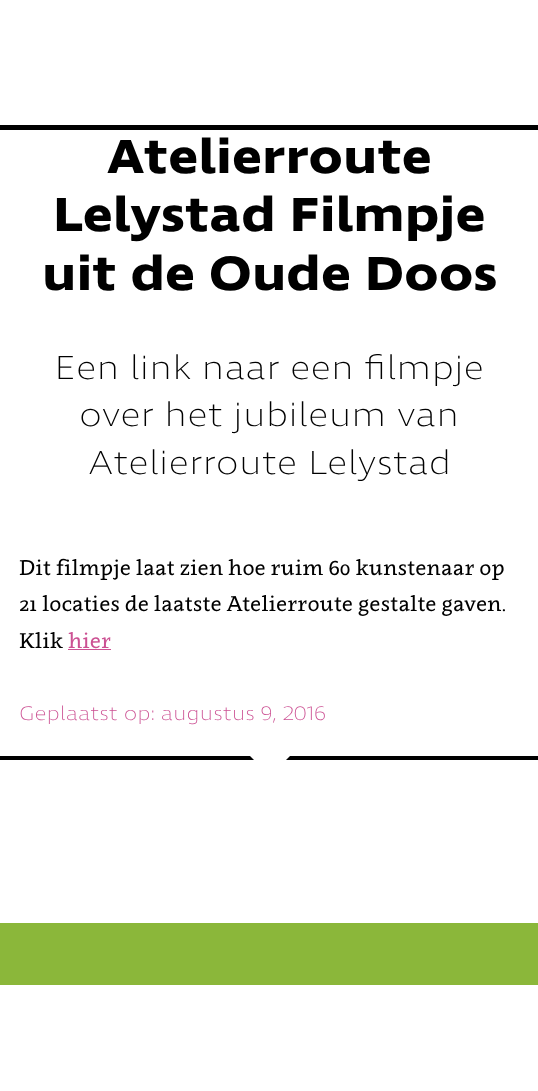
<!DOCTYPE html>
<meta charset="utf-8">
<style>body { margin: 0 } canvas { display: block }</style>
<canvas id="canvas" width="538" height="1091"></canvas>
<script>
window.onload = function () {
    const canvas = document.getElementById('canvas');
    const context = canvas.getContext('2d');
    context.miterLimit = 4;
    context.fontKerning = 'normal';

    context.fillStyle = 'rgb(255, 255, 255)';
    context.fillRect(0, 0, 538, 1091);
    context.fillStyle = 'rgb(0, 0, 0)';
    context.fillRect(0, 125, 538, 5);
    context.fillStyle = 'rgb(204, 81, 147)';
    context.fillRect(68, 649, 43, 1);
    context.fillStyle = 'rgb(0, 0, 0)';
    context.fillRect(0, 756, 538, 4);
    context.save();
    context.beginPath();
    context.rect(0, 756, 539, 4);
    context.clip();
    context.fillStyle = 'rgb(255, 255, 255)';
    context.beginPath();
    context.moveTo(245, 751);
    context.lineTo(295, 751);
    context.lineTo(270, 776);
    context.closePath();
    context.fill();
    context.restore();
    context.fillStyle = 'rgb(139, 183, 58)';
    context.fillRect(0, 923, 538, 62);
    context.font = 'bold 48.9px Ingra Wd';
    context.fillStyle = 'rgb(0, 0, 0)';
    context.fillText('Atelierroute', 107, 173);
    context.fillText('Lelystad Filmpje', 53, 231);
    context.fillText('uit de Oude Doos', 42, 290);
    context.font = '200 34px Ingra Wd';
    context.fillText('Een link naar een filmpje', 54, 379);
    context.fillText('over het jubileum van', 79, 426);
    context.fillText('Atelierroute Lelystad', 88, 474);
    context.font = '21.25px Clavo';
    context.fillText('Dit filmpje laat zien hoe ruim 60 kunstenaar op', 19, 575);
    context.fillText('21 locaties de laatste Atelierroute gestalte gaven.', 19, 611);
    context.fillText('Klik', 19, 648);
    context.fillStyle = 'rgb(204, 81, 147)';
    context.fillText('hier', 68, 648);
    context.font = '200 20px Ingra Wd';
    context.fillText('Geplaatst op: augustus 9, 2016', 19, 720);
};
</script>
